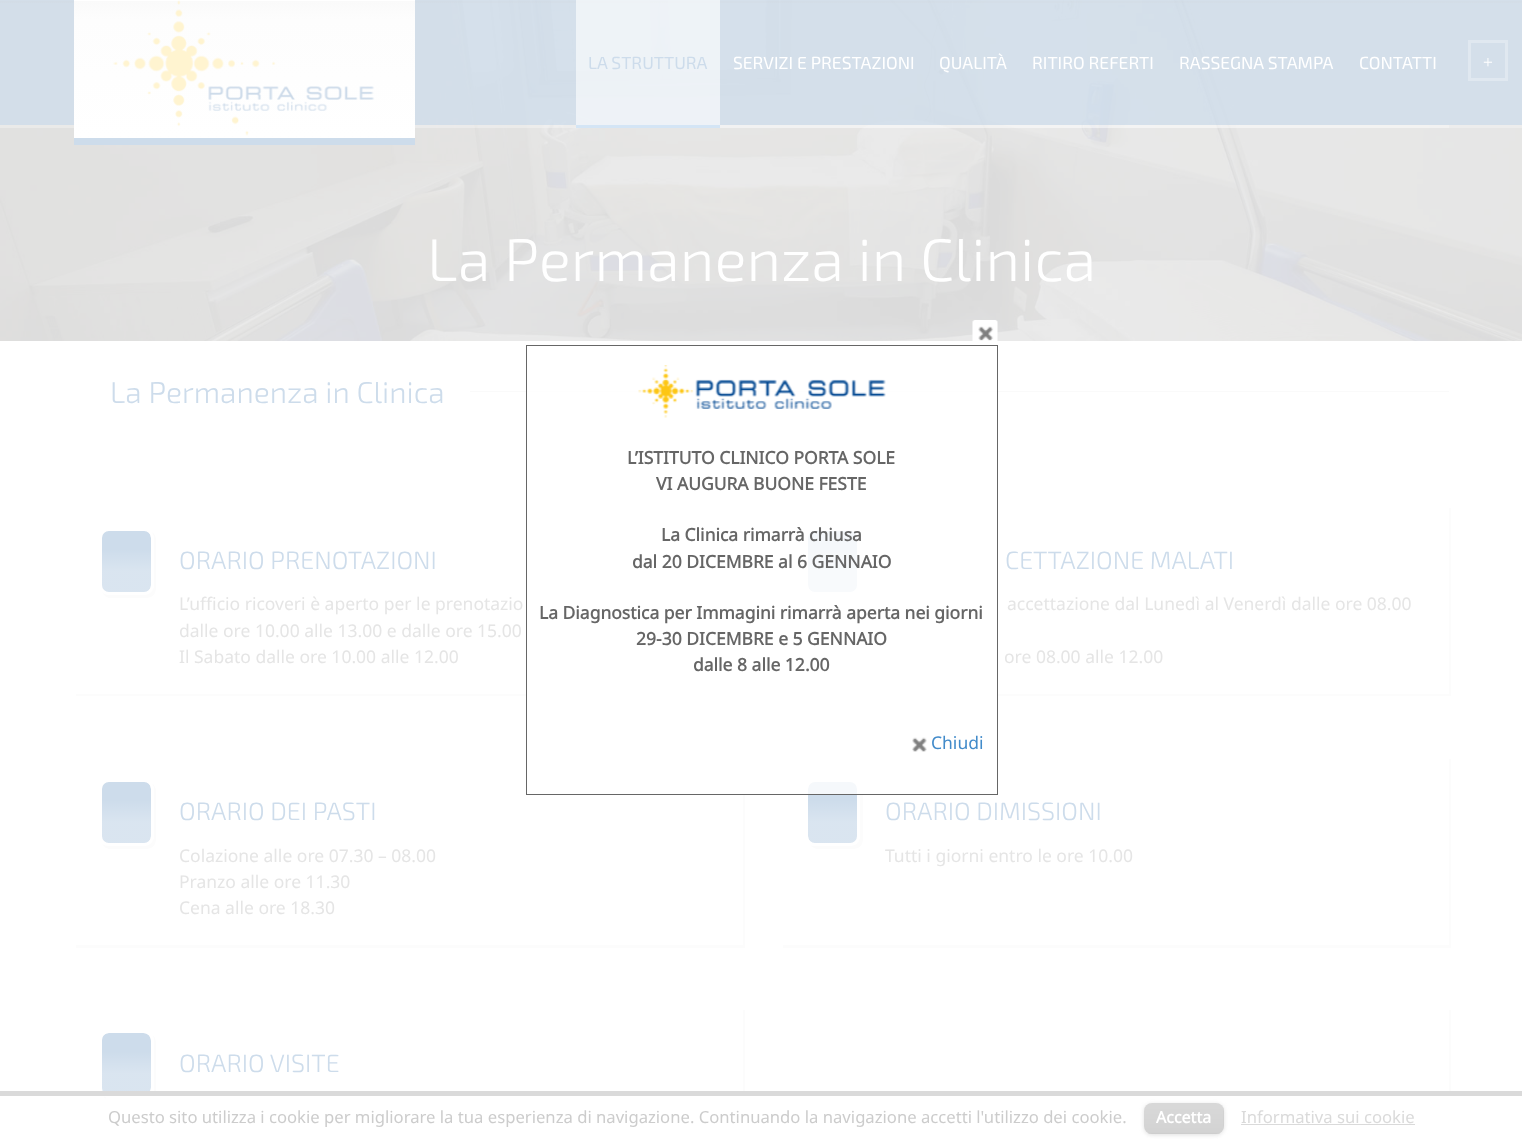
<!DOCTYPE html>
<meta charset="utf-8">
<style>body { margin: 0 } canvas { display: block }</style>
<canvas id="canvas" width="1522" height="1139"></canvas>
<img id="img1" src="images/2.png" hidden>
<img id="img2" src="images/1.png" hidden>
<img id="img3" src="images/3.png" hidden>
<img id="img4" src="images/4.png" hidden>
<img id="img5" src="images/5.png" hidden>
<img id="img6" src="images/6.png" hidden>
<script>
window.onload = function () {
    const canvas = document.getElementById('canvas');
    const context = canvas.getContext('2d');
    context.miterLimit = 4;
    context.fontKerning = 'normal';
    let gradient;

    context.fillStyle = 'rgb(255, 255, 255)';
    context.fillRect(0, 0, 1522, 1139);
    context.drawImage(document.getElementById('img1'), 0, 0, 1522, 341);
    context.fillStyle = 'rgba(205, 220, 235, 0.72)';
    context.fillRect(0, 0, 1522, 125);
    gradient = context.createLinearGradient(761, 0, 761, 125);
    gradient.addColorStop(0.01, 'rgba(204, 204, 204, 0)');
    gradient.addColorStop(0.01, 'rgba(204, 204, 204, 0.1)');
    gradient.addColorStop(0.15, 'rgba(204, 204, 204, 0.03)');
    gradient.addColorStop(1, 'rgba(204, 204, 204, 0)');
    context.fillStyle = gradient;
    context.fillRect(0, 1, 1522, 2);
    context.fillStyle = 'rgba(255, 255, 255, 0.3)';
    context.fillRect(0, 125, 1522, 3);
    gradient = context.createLinearGradient(244, 0, 244, 138);
    gradient.addColorStop(0.01, 'rgb(255, 255, 255)');
    gradient.addColorStop(0.01, 'rgb(250, 250, 250)');
    gradient.addColorStop(0.14, 'rgb(253, 253, 253)');
    gradient.addColorStop(1, 'rgb(255, 255, 255)');
    context.fillStyle = gradient;
    context.fillRect(74, 0, 341, 138);
    context.drawImage(document.getElementById('img2'), 113, 0, 262, 136);
    context.fillStyle = 'rgb(205, 220, 235)';
    context.fillRect(74, 138, 341, 7);
    context.fillStyle = 'rgba(255, 255, 255, 0.6)';
    context.fillRect(576, 0, 144, 125);
    context.fillStyle = 'rgb(212, 229, 245)';
    context.fillRect(576, 125, 144, 3);
    context.fillStyle = 'rgba(255, 255, 255, 0.3)';
    context.fillRect(720, 125, 208, 3);
    context.fillRect(928, 125, 92, 3);
    context.fillRect(1020, 125, 146, 3);
    context.fillRect(1166, 125, 180, 3);
    context.fillRect(1346, 125, 103, 3);
    context.strokeStyle = 'rgba(255, 255, 255, 0.29)';
    context.lineWidth = 3;
    context.strokeRect(1469.5, 41.5, 37, 38);
    context.fillStyle = 'rgb(250, 250, 250)';
    context.fillRect(470, 391, 979, 1);
    context.fillStyle = 'rgb(252, 252, 252)';
    context.beginPath();
    context.moveTo(76, 694);
    context.lineTo(76, 696);
    context.lineTo(745, 696);
    context.lineTo(745, 508);
    context.lineTo(742, 508);
    context.lineTo(742, 694);
    context.closePath();
    context.fill();
    context.fillStyle = 'rgb(255, 255, 255)';
    context.fillRect(742, 508, 1, 186);
    context.fillStyle = 'rgb(252, 252, 252)';
    context.beginPath();
    context.moveTo(102, 592);
    context.bezierCurveTo(104, 596, 107, 598, 111, 598);
    context.lineTo(146, 598);
    context.bezierCurveTo(152, 598, 156, 594, 156, 588);
    context.lineTo(156, 540);
    context.bezierCurveTo(156, 537, 155, 534, 152, 532);
    context.bezierCurveTo(153, 534, 154, 536, 154, 538);
    context.lineTo(154, 585);
    context.bezierCurveTo(154, 591, 149, 595, 144, 595);
    context.lineTo(109, 595);
    context.bezierCurveTo(106, 595, 104, 594, 102, 592);
    context.closePath();
    context.fill();
    context.fillStyle = 'rgb(205, 220, 235)';
    context.beginPath();
    context.roundRect(101, 530, 50, 63, 8);
    context.fill();
    gradient = context.createLinearGradient(126, 593, 126, 530);
    gradient.addColorStop(0.35, 'rgba(255, 255, 255, 0.25)');
    gradient.addColorStop(0.7, 'rgba(255, 255, 255, 0)');
    context.fillStyle = gradient;
    context.beginPath();
    context.roundRect(101, 530, 50, 63, 8);
    context.fill();
    context.beginPath();
    context.roundRect(100.5, 529.5, 52, 64, 8.5);
    context.strokeStyle = 'rgb(255, 255, 255)';
    context.stroke();
    context.fillStyle = 'rgb(252, 252, 252)';
    context.beginPath();
    context.moveTo(783, 694);
    context.lineTo(783, 696);
    context.lineTo(1451, 696);
    context.lineTo(1451, 508);
    context.lineTo(1449, 508);
    context.lineTo(1449, 694);
    context.closePath();
    context.fill();
    context.beginPath();
    context.moveTo(810, 593);
    context.bezierCurveTo(811, 596, 814, 598, 818, 598);
    context.lineTo(853, 598);
    context.bezierCurveTo(859, 598, 863, 594, 863, 588);
    context.lineTo(863, 540);
    context.bezierCurveTo(863, 536, 861, 533, 858, 531);
    context.bezierCurveTo(859, 533, 860, 535, 860, 538);
    context.lineTo(860, 585);
    context.bezierCurveTo(860, 591, 856, 595, 850, 595);
    context.lineTo(815, 595);
    context.bezierCurveTo(813, 595, 811, 594, 810, 593);
    context.closePath();
    context.fill();
    context.fillStyle = 'rgb(205, 220, 235)';
    context.beginPath();
    context.roundRect(808, 530, 50, 63, 8);
    context.fill();
    gradient = context.createLinearGradient(833, 593, 833, 530);
    gradient.addColorStop(0.35, 'rgba(255, 255, 255, 0.25)');
    gradient.addColorStop(0.7, 'rgba(255, 255, 255, 0)');
    context.fillStyle = gradient;
    context.beginPath();
    context.roundRect(808, 530, 50, 63, 8);
    context.fill();
    context.beginPath();
    context.roundRect(806.5, 529.5, 52, 64, 8.5);
    context.stroke();
    context.fillStyle = 'rgb(252, 252, 252)';
    context.beginPath();
    context.moveTo(76, 945);
    context.lineTo(76, 948);
    context.lineTo(745, 948);
    context.lineTo(745, 759);
    context.lineTo(742, 759);
    context.lineTo(742, 945);
    context.closePath();
    context.fill();
    context.fillStyle = 'rgb(255, 255, 255)';
    context.fillRect(742, 759, 1, 186);
    context.fillStyle = 'rgb(252, 252, 252)';
    context.beginPath();
    context.moveTo(102, 844);
    context.bezierCurveTo(104, 847, 107, 849, 111, 849);
    context.lineTo(146, 849);
    context.bezierCurveTo(152, 849, 156, 845, 156, 839);
    context.lineTo(156, 791);
    context.bezierCurveTo(156, 788, 154, 785, 152, 783);
    context.bezierCurveTo(153, 785, 154, 787, 154, 789);
    context.lineTo(154, 836);
    context.bezierCurveTo(154, 842, 149, 846, 144, 846);
    context.lineTo(109, 846);
    context.bezierCurveTo(106, 846, 104, 845, 102, 844);
    context.closePath();
    context.fill();
    context.fillStyle = 'rgb(205, 220, 235)';
    context.beginPath();
    context.roundRect(101, 781, 50, 63, 8);
    context.fill();
    gradient = context.createLinearGradient(126, 844, 126, 781);
    gradient.addColorStop(0.35, 'rgba(255, 255, 255, 0.25)');
    gradient.addColorStop(0.7, 'rgba(255, 255, 255, 0)');
    context.fillStyle = gradient;
    context.beginPath();
    context.roundRect(101, 781, 50, 63, 8);
    context.fill();
    context.beginPath();
    context.roundRect(100.5, 780.5, 52, 64, 8.5);
    context.stroke();
    context.fillStyle = 'rgb(252, 252, 252)';
    context.beginPath();
    context.moveTo(783, 945);
    context.lineTo(783, 948);
    context.lineTo(1451, 948);
    context.lineTo(1451, 759);
    context.lineTo(1449, 759);
    context.lineTo(1449, 945);
    context.closePath();
    context.fill();
    context.beginPath();
    context.moveTo(810, 845);
    context.bezierCurveTo(812, 847, 815, 849, 818, 849);
    context.lineTo(853, 849);
    context.bezierCurveTo(859, 849, 863, 845, 863, 839);
    context.lineTo(863, 791);
    context.bezierCurveTo(863, 787, 861, 784, 857, 782);
    context.bezierCurveTo(859, 784, 860, 786, 860, 789);
    context.lineTo(860, 836);
    context.bezierCurveTo(860, 842, 856, 846, 850, 846);
    context.lineTo(815, 846);
    context.bezierCurveTo(813, 846, 811, 846, 810, 845);
    context.closePath();
    context.fill();
    context.fillStyle = 'rgb(205, 220, 235)';
    context.beginPath();
    context.roundRect(808, 781, 50, 63, 8);
    context.fill();
    gradient = context.createLinearGradient(833, 844, 833, 781);
    gradient.addColorStop(0.35, 'rgba(255, 255, 255, 0.25)');
    gradient.addColorStop(0.7, 'rgba(255, 255, 255, 0)');
    context.fillStyle = gradient;
    context.beginPath();
    context.roundRect(808, 781, 50, 63, 8);
    context.fill();
    context.beginPath();
    context.roundRect(806.5, 780.5, 52, 64, 8.5);
    context.stroke();
    context.fillStyle = 'rgb(252, 252, 252)';
    context.beginPath();
    context.moveTo(103, 1095);
    context.bezierCurveTo(104, 1098, 107, 1100, 111, 1100);
    context.lineTo(146, 1100);
    context.bezierCurveTo(152, 1100, 156, 1096, 156, 1090);
    context.lineTo(156, 1043);
    context.bezierCurveTo(156, 1040, 155, 1037, 153, 1036);
    context.bezierCurveTo(153, 1037, 154, 1038, 154, 1040);
    context.lineTo(154, 1088);
    context.bezierCurveTo(154, 1093, 149, 1098, 144, 1098);
    context.lineTo(109, 1098);
    context.bezierCurveTo(106, 1098, 104, 1097, 103, 1095);
    context.closePath();
    context.fill();
    context.fillStyle = 'rgb(205, 220, 235)';
    context.beginPath();
    context.roundRect(101, 1033, 50, 62, 8);
    context.fill();
    gradient = context.createLinearGradient(126, 1095, 126, 1033);
    gradient.addColorStop(0.35, 'rgba(255, 255, 255, 0.25)');
    gradient.addColorStop(0.7, 'rgba(255, 255, 255, 0)');
    context.fillStyle = gradient;
    context.beginPath();
    context.roundRect(101, 1033, 50, 62, 8);
    context.fill();
    context.beginPath();
    context.roundRect(100.5, 1031.5, 52, 65, 8.5);
    context.stroke();
    context.fillStyle = 'rgb(252, 252, 252)';
    context.beginPath();
    context.moveTo(76, 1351);
    context.lineTo(76, 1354);
    context.lineTo(745, 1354);
    context.lineTo(745, 1010);
    context.lineTo(742, 1010);
    context.lineTo(742, 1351);
    context.closePath();
    context.fill();
    context.fillStyle = 'rgb(255, 255, 255)';
    context.fillRect(742, 1010, 1, 81);
    context.fillStyle = 'rgb(252, 252, 252)';
    context.beginPath();
    context.moveTo(783, 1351);
    context.lineTo(783, 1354);
    context.lineTo(1451, 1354);
    context.lineTo(1451, 1010);
    context.lineTo(1449, 1010);
    context.lineTo(1449, 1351);
    context.closePath();
    context.fill();
    context.drawImage(document.getElementById('img3'), 972, 320, 26, 21);
    context.fillStyle = 'rgba(255, 255, 255, 0.8)';
    context.fillRect(527, 391, 470, 403);
    context.strokeStyle = 'rgb(102, 102, 102)';
    context.lineWidth = 1;
    context.strokeRect(526.5, 345.5, 471, 449);
    context.drawImage(document.getElementById('img4'), 638, 365, 248, 53);
    context.drawImage(document.getElementById('img5'), 912, 737, 15, 15);
    context.fillStyle = 'rgb(255, 255, 255)';
    context.fillRect(106, 1096, 1345, 43);
    context.fillStyle = 'rgb(218, 218, 218)';
    context.fillRect(0, 1091, 1522, 5);
    context.fillStyle = 'rgba(204, 204, 204, 0.6)';
    context.filter = 'blur(2px)';
    context.beginPath();
    context.roundRect(1144, 1104, 80, 31, 8);
    context.fill();
    context.filter = 'none';
    context.fillStyle = 'rgb(204, 204, 204)';
    context.beginPath();
    context.roundRect(1144, 1103, 80, 31, 8);
    context.fill();
    context.drawImage(document.getElementById('img6'), 1144, 1103, 80, 31);
    context.fillStyle = 'rgba(204, 204, 204, 0.25)';
    context.fillRect(1148, 1133, 72, 1);
    context.fillStyle = 'rgb(218, 218, 218)';
    context.fillRect(1241, 1124, 174, 1);
    context.font = '17.5px "Exo 2"';
    context.fillStyle = 'rgb(205, 220, 235)';
    context.fillText('LA STRUTTURA', 588, 69);
    context.fillStyle = 'rgb(255, 255, 255)';
    context.fillText('SERVIZI E PRESTAZIONI', 733, 69);
    context.fillText('QUALITÀ', 939, 69);
    context.fillText('RITIRO REFERTI', 1032, 69);
    context.fillText('RASSEGNA STAMPA', 1179, 69);
    context.fillText('CONTATTI', 1359, 69);
    context.font = '17.5px Liberation Serif';
    context.fillText('+', 1483, 68);
    context.font = '300 60px "Exo 2"';
    context.fillText('La Permanenza in Clinica', 427, 281);
    context.font = '300 30px "Exo 2"';
    context.fillStyle = 'rgb(205, 220, 235)';
    context.fillText('La Permanenza in Clinica', 110, 403);
    context.font = '300 25px "Exo 2"';
    context.fillText('ORARIO PRENOTAZIONI', 179, 569);
    context.font = '17.5px Noto Sans';
    context.fillStyle = 'rgb(229, 229, 229)';
    context.fillText('L’ufficio ricoveri è aperto per le prenotazio', 179, 610);
    context.fillText('dalle ore 10.00 alle 13.00 e dalle ore 15.00', 179, 637);
    context.fillText('Il Sabato dalle ore 10.00 alle 12.00', 179, 663);
    context.font = '300 25px "Exo 2"';
    context.fillStyle = 'rgb(205, 220, 235)';
    context.fillText('CETTAZIONE MALATI', 1005, 569);
    context.font = '17.5px Noto Sans';
    context.fillStyle = 'rgb(229, 229, 229)';
    context.fillText('accettazione dal Lunedì al Venerdì dalle ore 08.00', 1007, 610);
    context.fillText('ore 08.00 alle 12.00', 1004, 663);
    context.font = '300 25px "Exo 2"';
    context.fillStyle = 'rgb(205, 220, 235)';
    context.fillText('ORARIO DEI PASTI', 179, 820);
    context.font = '17.5px Noto Sans';
    context.fillStyle = 'rgb(229, 229, 229)';
    context.fillText('Colazione alle ore 07.30 – 08.00', 179, 862);
    context.fillText('Pranzo alle ore 11.30', 179, 888);
    context.fillText('Cena alle ore 18.30', 179, 914);
    context.font = '300 25px "Exo 2"';
    context.fillStyle = 'rgb(205, 220, 235)';
    context.fillText('ORARIO DIMISSIONI', 885, 820);
    context.font = '17.5px Noto Sans';
    context.fillStyle = 'rgb(229, 229, 229)';
    context.fillText('Tutti i giorni entro le ore 10.00', 885, 862);
    context.font = '300 25px "Exo 2"';
    context.fillStyle = 'rgb(205, 220, 235)';
    context.fillText('ORARIO VISITE', 179, 1072);
    context.font = 'bold 17.5px Noto Sans';
    context.fillStyle = 'rgb(102, 102, 102)';
    context.fillText('L’ISTITUTO CLINICO PORTA SOLE', 627, 464);
    context.fillText('VI AUGURA BUONE FESTE', 656, 490);
    context.fillText('La Clinica rimarrà chiusa', 661, 541);
    context.fillText('dal 20 DICEMBRE al 6 GENNAIO', 632, 568);
    context.fillText('La Diagnostica per Immagini rimarrà aperta nei giorni', 539, 619);
    context.fillText('29-30 DICEMBRE e 5 GENNAIO', 636, 645);
    context.fillText('dalle 8 alle 12.00', 693, 671);
    context.font = '17.5px Noto Sans';
    context.fillStyle = 'rgb(66, 139, 202)';
    context.fillText('Chiudi', 931, 749);
    context.font = '16.67px Noto Sans';
    context.fillStyle = 'rgb(204, 204, 204)';
    context.fillText('Questo sito utilizza i cookie per migliorare la tua esperienza di navigazione. Continuando la navigazione accetti l\'utilizzo dei cookie.', 108, 1123);
    context.font = 'bold 16px Noto Sans';
    context.fillStyle = 'rgb(255, 255, 255)';
    context.fillText('Accetta', 1156, 1123);
    context.font = '16.67px Noto Sans';
    context.fillStyle = 'rgb(218, 218, 218)';
    context.fillText('Informativa sui cookie', 1241, 1123);
};
</script>
